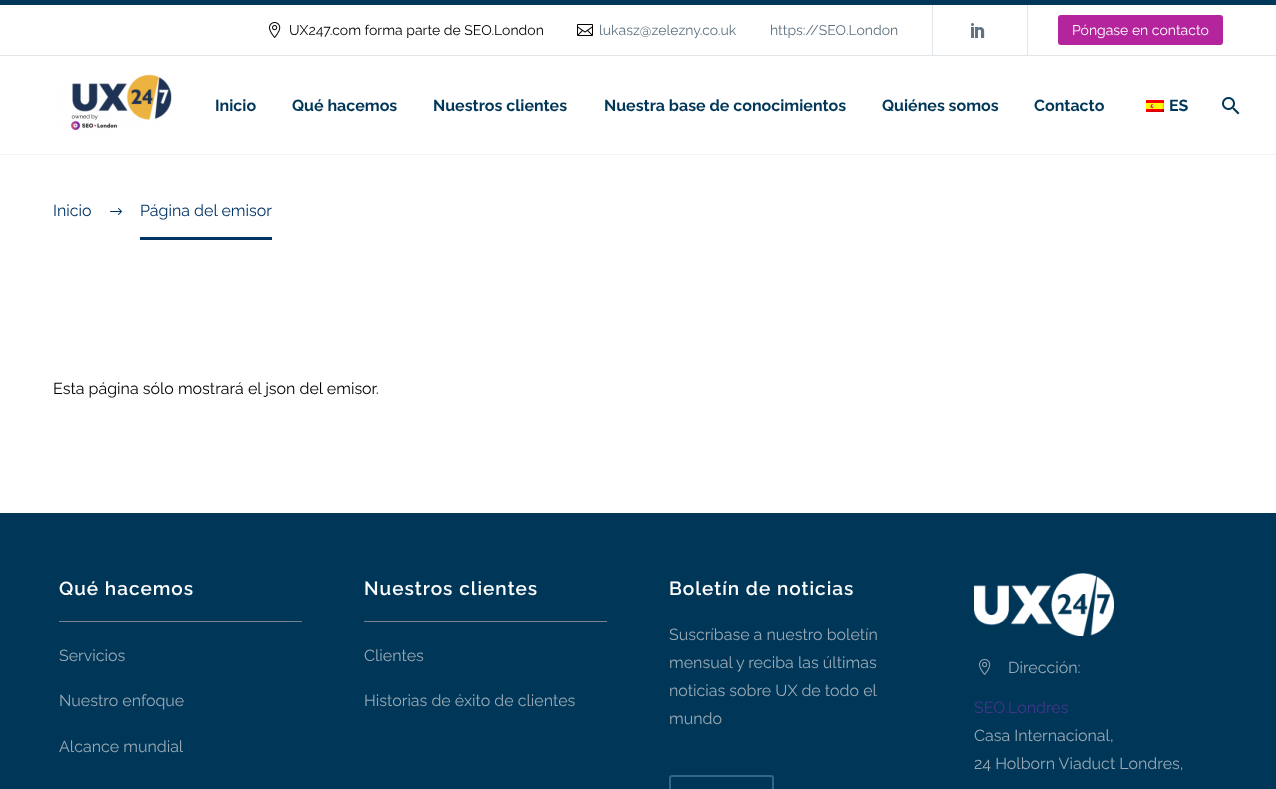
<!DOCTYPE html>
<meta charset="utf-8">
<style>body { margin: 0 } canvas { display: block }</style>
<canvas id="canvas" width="1276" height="789"></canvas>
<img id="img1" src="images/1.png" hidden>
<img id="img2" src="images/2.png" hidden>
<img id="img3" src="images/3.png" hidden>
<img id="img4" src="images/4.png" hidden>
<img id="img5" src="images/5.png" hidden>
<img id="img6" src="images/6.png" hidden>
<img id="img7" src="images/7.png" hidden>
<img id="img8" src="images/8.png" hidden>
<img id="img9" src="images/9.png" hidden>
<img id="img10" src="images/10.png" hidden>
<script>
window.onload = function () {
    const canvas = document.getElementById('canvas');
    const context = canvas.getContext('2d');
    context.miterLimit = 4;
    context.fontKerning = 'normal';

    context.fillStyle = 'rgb(255, 255, 255)';
    context.fillRect(0, 0, 1276, 789);
    context.save();
    context.beginPath();
    context.rect(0, 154, 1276, 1);
    context.clip();
    context.fillStyle = 'rgba(56, 69, 84, 0.2)';
    context.filter = 'blur(1px)';
    context.beginPath();
    context.rect(0, 0, 1276, 154);
    context.fill();
    context.filter = 'none';
    context.restore();
    context.fillStyle = 'rgb(0, 55, 89)';
    context.fillRect(0, 0, 1276, 5);
    context.fillStyle = 'rgb(223, 229, 232)';
    context.fillRect(0, 55, 1276, 1);
    context.drawImage(document.getElementById('img1'), 269, 22, 12, 16);
    context.drawImage(document.getElementById('img2'), 577, 24, 16, 12);
    context.fillRect(932, 5, 1, 50);
    context.drawImage(document.getElementById('img3'), 971, 23, 14, 15);
    context.fillRect(1027, 5, 1, 50);
    context.fillStyle = 'rgb(180, 36, 156)';
    context.beginPath();
    context.roundRect(1058, 15, 165, 30, 3);
    context.fill();
    context.drawImage(document.getElementById('img4'), 57, 74, 115, 67);
    context.drawImage(document.getElementById('img5'), 1146, 100, 18, 12);
    context.drawImage(document.getElementById('img6'), 1222, 97, 18, 18);
    context.drawImage(document.getElementById('img7'), 110, 208, 12, 7);
    context.fillStyle = 'rgb(0, 51, 102)';
    context.fillRect(140, 237, 132, 3);
    context.fillStyle = 'rgb(0, 55, 89)';
    context.fillRect(0, 513, 1276, 276);
    context.fillStyle = 'rgb(119, 130, 140)';
    context.fillRect(59, 621, 243, 1);
    context.fillRect(364, 621, 243, 1);
    context.beginPath();
    context.roundRect(670, 776, 103, 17, 2);
    context.strokeStyle = 'rgb(51, 101, 138)';
    context.lineWidth = 2;
    context.stroke();
    context.drawImage(document.getElementById('img8'), 974, 573, 140, 63);
    context.drawImage(document.getElementById('img9'), 979, 659, 6, 16);
    context.drawImage(document.getElementById('img10'), 985, 659, 6, 16);
    context.font = '14px Raleway';
    context.fillStyle = 'rgb(0, 0, 0)';
    context.fillText('UX247.com forma parte de SEO.London', 289, 35);
    context.fillStyle = 'rgb(95, 114, 127)';
    context.fillText('lukasz@zelezny.co.uk', 599, 35);
    context.fillText('https://SEO.London', 770, 35);
    context.fillStyle = 'rgb(254, 255, 255)';
    context.fillText('Póngase en contacto', 1072, 35);
    context.font = 'bold 16px Raleway';
    context.fillStyle = 'rgb(0, 55, 89)';
    context.fillText('Inicio', 215, 111);
    context.fillText('Qué hacemos', 292, 111);
    context.fillText('Nuestros clientes', 433, 111);
    context.fillText('Nuestra base de conocimientos', 604, 111);
    context.fillText('Quiénes somos', 882, 111);
    context.fillText('Contacto', 1034, 111);
    context.fillText('ES', 1169, 111);
    context.font = '16px Raleway';
    context.fillStyle = 'rgb(0, 51, 102)';
    context.fillText('Inicio', 53, 216);
    context.fillText('Página del emisor', 140, 216);
    context.fillStyle = 'rgb(0, 0, 0)';
    context.fillText('Esta página sólo mostrará el json del emisor.', 53, 394);
    context.letterSpacing = '1px';
    context.font = '600 19px Raleway';
    context.fillStyle = 'rgb(254, 255, 255)';
    context.fillText('Qué hacemos', 59, 595);
    context.letterSpacing = '0px';
    context.font = '16px Raleway';
    context.fillStyle = 'rgb(153, 169, 181)';
    context.fillText('Servicios', 59, 661);
    context.fillText('Nuestro enfoque', 59, 706);
    context.fillText('Alcance mundial', 59, 752);
    context.letterSpacing = '1px';
    context.font = '600 19px Raleway';
    context.fillStyle = 'rgb(254, 255, 255)';
    context.fillText('Nuestros clientes', 364, 595);
    context.letterSpacing = '0px';
    context.font = '16px Raleway';
    context.fillStyle = 'rgb(153, 169, 181)';
    context.fillText('Clientes', 364, 661);
    context.fillText('Historias de éxito de clientes', 364, 706);
    context.letterSpacing = '1px';
    context.font = '600 19px Raleway';
    context.fillStyle = 'rgb(254, 255, 255)';
    context.fillText('Boletín de noticias', 669, 595);
    context.letterSpacing = '0px';
    context.font = '16px Raleway';
    context.fillStyle = 'rgb(153, 169, 181)';
    context.fillText('Suscríbase a nuestro boletín', 669, 640);
    context.fillText('mensual y reciba las últimas', 669, 668);
    context.fillText('noticias sobre UX de todo el', 669, 696);
    context.fillText('mundo', 669, 724);
    context.fillText('Dirección:', 1008, 673);
    context.fillStyle = 'rgb(68, 53, 139)';
    context.fillText('SEO.Londres', 974, 713);
    context.fillStyle = 'rgb(153, 169, 181)';
    context.fillText('Casa Internacional,', 974, 741);
    context.fillText('24 Holborn Viaduct Londres,', 974, 769);
};
</script>
